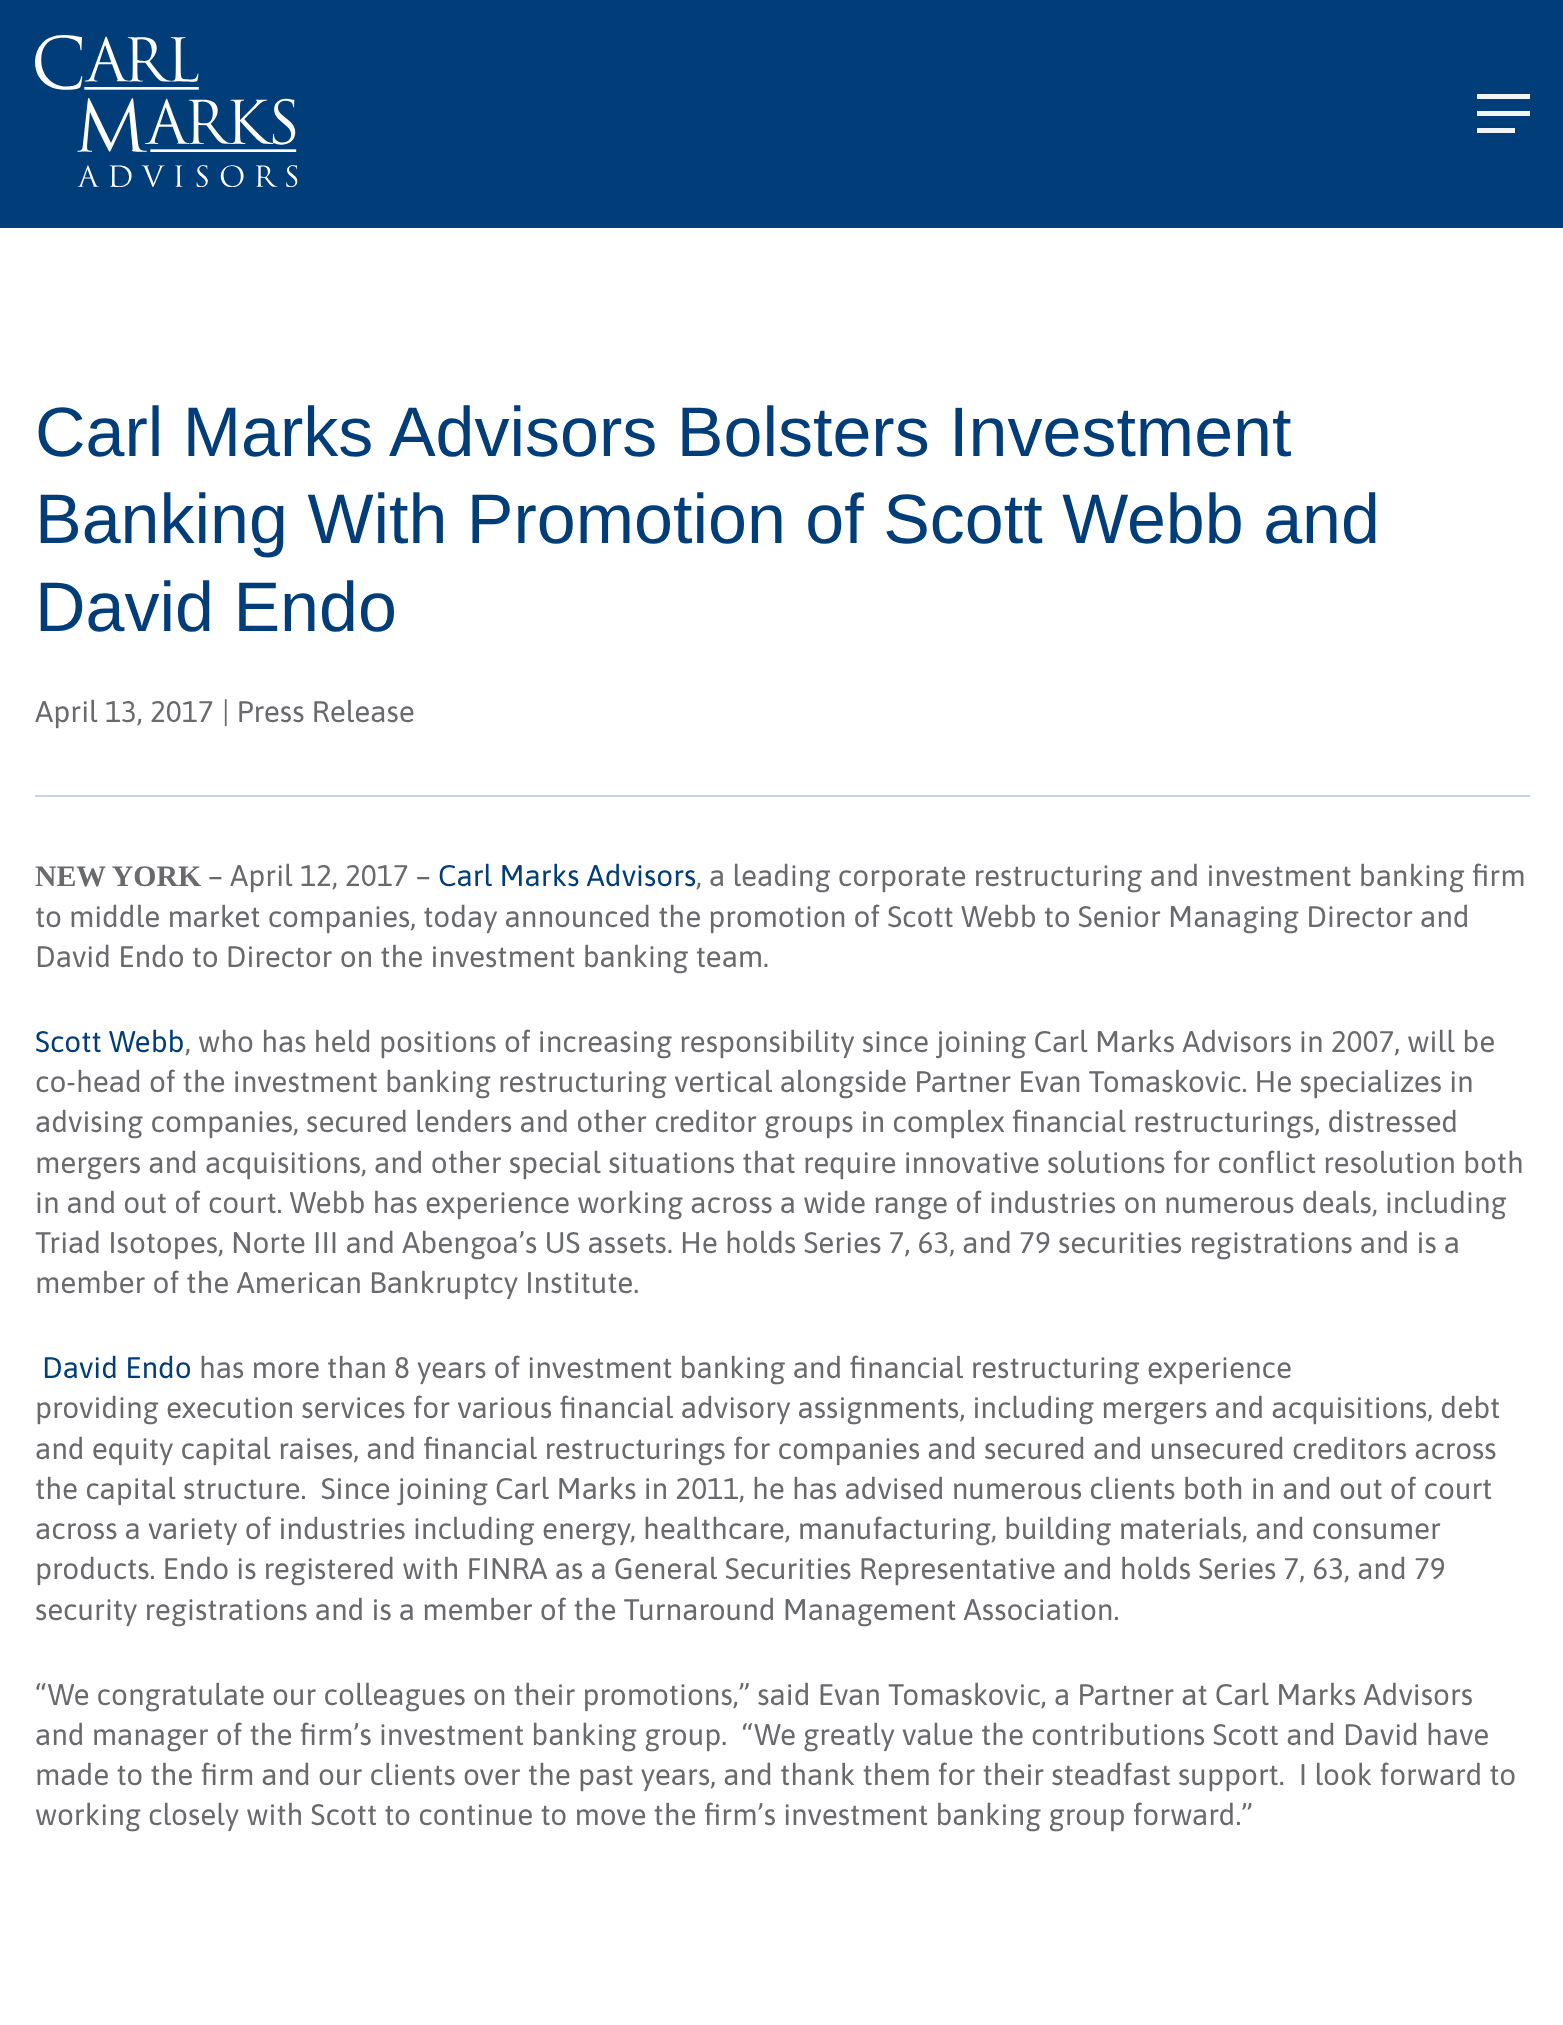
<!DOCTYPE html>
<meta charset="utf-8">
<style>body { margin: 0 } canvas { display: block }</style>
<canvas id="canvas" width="1563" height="2025"></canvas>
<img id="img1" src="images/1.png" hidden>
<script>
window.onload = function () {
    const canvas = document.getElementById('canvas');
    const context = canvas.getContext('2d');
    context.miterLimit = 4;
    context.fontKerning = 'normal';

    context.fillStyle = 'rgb(255, 255, 255)';
    context.fillRect(0, 0, 1563, 2025);
    context.fillStyle = 'rgb(0, 61, 121)';
    context.fillRect(0, 0, 1563, 228);
    context.drawImage(document.getElementById('img1'), 35, 35, 263, 152);
    context.fillStyle = 'rgb(241, 245, 248)';
    context.fillRect(1477, 94, 53, 5);
    context.fillRect(1477, 111, 53, 5);
    context.fillRect(1477, 128, 38, 5);
    context.fillStyle = 'rgb(200, 212, 224)';
    context.fillRect(35, 795, 1495, 2);
    context.font = '70px Liberation Sans';
    context.fillStyle = 'rgb(0, 61, 121)';
    context.fillText('Carl Marks Advisors Bolsters Investment', 35, 456);
    context.fillText('Banking With Promotion of Scott Webb and', 35, 543);
    context.fillText('David Endo', 35, 631);
    context.font = '29.75px Asap';
    context.fillStyle = 'rgb(105, 106, 109)';
    context.fillText('April 13, 2017', 35, 722);
    context.fillText('| Press Release', 222, 722);
    context.font = 'bold 29.75px Liberation Serif';
    context.fillText('NEW YORK', 35, 886);
    context.font = '29.75px Asap';
    context.fillText('– April 12, 2017 –', 208, 886);
    context.fillStyle = 'rgb(0, 61, 121)';
    context.fillText('Carl Marks Advisors', 438, 886);
    context.fillStyle = 'rgb(105, 106, 109)';
    context.fillText(', a leading corporate restructuring and investment banking firm', 696, 886);
    context.fillText('to middle market companies, today announced the promotion of Scott Webb to Senior Managing Director and', 35, 927);
    context.fillText('David Endo to Director on the investment banking team.', 35, 967);
    context.fillStyle = 'rgb(0, 61, 121)';
    context.fillText('Scott Webb', 35, 1052);
    context.fillStyle = 'rgb(105, 106, 109)';
    context.fillText(', who has held positions of increasing responsibility since joining Carl Marks Advisors in 2007, will be', 185, 1052);
    context.fillText('co-head of the investment banking restructuring vertical alongside Partner Evan Tomaskovic. He specializes in', 35, 1092);
    context.fillText('advising companies, secured lenders and other creditor groups in complex financial restructurings, distressed', 35, 1132);
    context.fillText('mergers and acquisitions, and other special situations that require innovative solutions for conflict resolution both', 35, 1173);
    context.fillText('in and out of court. Webb has experience working across a wide range of industries on numerous deals, including', 35, 1213);
    context.fillText('Triad Isotopes, Norte III and Abengoa’s US assets. He holds Series 7, 63, and 79 securities registrations and is a', 35, 1253);
    context.fillText('member of the American Bankruptcy Institute.', 35, 1293);
    context.fillStyle = 'rgb(0, 61, 121)';
    context.fillText('David Endo', 42, 1378);
    context.fillStyle = 'rgb(105, 106, 109)';
    context.fillText('has more than 8 years of investment banking and financial restructuring experience', 199, 1378);
    context.fillText('providing execution services for various financial advisory assignments, including mergers and acquisitions, debt', 35, 1418);
    context.fillText('and equity capital raises, and financial restructurings for companies and secured and unsecured creditors across', 35, 1459);
    context.fillText('the capital structure.  Since joining Carl Marks in 2011, he has advised numerous clients both in and out of court', 35, 1499);
    context.fillText('across a variety of industries including energy, healthcare, manufacturing, building materials, and consumer', 35, 1539);
    context.fillText('products. Endo is registered with FINRA as a General Securities Representative and holds Series 7, 63, and 79', 35, 1579);
    context.fillText('security registrations and is a member of the Turnaround Management Association.', 35, 1620);
    context.fillText('“We congratulate our colleagues on their promotions,” said Evan Tomaskovic, a Partner at Carl Marks Advisors', 35, 1705);
    context.fillText('and manager of the firm’s investment banking group.  “We greatly value the contributions Scott and David have', 35, 1745);
    context.fillText('made to the firm and our clients over the past years, and thank them for their steadfast support.  I look forward to', 35, 1785);
    context.fillText('working closely with Scott to continue to move the firm’s investment banking group forward.”', 35, 1825);
};
</script>
